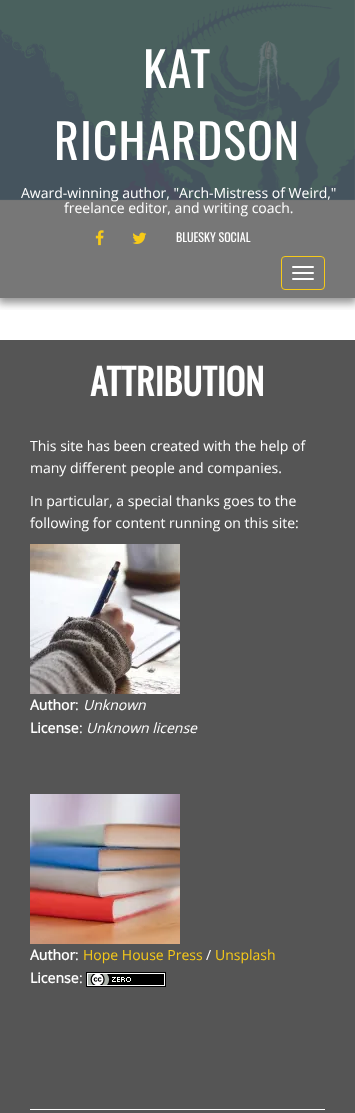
<!DOCTYPE html>
<meta charset="utf-8">
<style>body { margin: 0 } canvas { display: block }</style>
<canvas id="canvas" width="355" height="1113"></canvas>
<img id="img1" src="images/1.png" hidden>
<img id="img2" src="images/2.png" hidden>
<img id="img3" src="images/3.png" hidden>
<img id="img4" src="images/4.png" hidden>
<img id="img5" src="images/5.png" hidden>
<img id="img6" src="images/6.png" hidden>
<script>
window.onload = function () {
    const canvas = document.getElementById('canvas');
    const context = canvas.getContext('2d');
    context.miterLimit = 4;
    context.fontKerning = 'normal';

    context.fillStyle = 'rgb(255, 255, 255)';
    context.fillRect(0, 0, 355, 1113);
    context.fillStyle = 'rgb(119, 119, 119)';
    context.fillRect(0, 0, 355, 298);
    context.drawImage(document.getElementById('img1'), 0, 0, 355, 201);
    context.save();
    context.beginPath();
    context.rect(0, 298, 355, 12);
    context.clip();
    context.fillStyle = 'rgba(38, 38, 38, 0.5)';
    context.filter = 'blur(4px)';
    context.beginPath();
    context.rect(-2, 1, 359, 302);
    context.fill();
    context.filter = 'none';
    context.restore();
    context.drawImage(document.getElementById('img2'), 95, 230, 9, 16);
    context.drawImage(document.getElementById('img3'), 132, 232, 15, 12);
    context.beginPath();
    context.roundRect(281.5, 256.5, 43, 33, 3.5);
    context.strokeStyle = 'rgb(247, 202, 24)';
    context.stroke();
    context.fillStyle = 'rgb(255, 255, 255)';
    context.beginPath();
    context.roundRect(292, 266, 22, 2, 1);
    context.fill();
    context.beginPath();
    context.roundRect(292, 272, 22, 2, 1);
    context.fill();
    context.beginPath();
    context.roundRect(292, 278, 22, 2, 1);
    context.fill();
    context.fillStyle = 'rgb(85, 85, 85)';
    context.fillRect(0, 340, 355, 773);
    context.drawImage(document.getElementById('img4'), 30, 544, 150, 150);
    context.drawImage(document.getElementById('img5'), 30, 794, 150, 150);
    context.drawImage(document.getElementById('img6'), 86, 972, 80, 15);
    context.fillStyle = 'rgb(255, 255, 255)';
    context.fillRect(30, 1109, 295, 1);
    context.letterSpacing = '1px';
    context.font = '48px Oswald';
    context.fillText('KAT', 143, 88);
    context.fillText('RICHARDSON', 54, 160);
    context.letterSpacing = '0px';
    context.font = '14px Open Sans';
    context.fillText('Award-winning author, "Arch-Mistress of Weird,"', 21, 198);
    context.fillText('freelance editor, and writing coach.', 64, 213);
    context.font = '12px Oswald';
    context.fillText('BLUESKY SOCIAL', 176, 242);
    context.font = 'bold 36px Oswald';
    context.fillText('ATTRIBUTION', 90, 396);
    context.font = '14px Open Sans';
    context.fillText('This site has been created with the help of', 30, 451);
    context.fillText('many different people and companies.', 30, 473);
    context.fillText('In particular, a special thanks goes to the', 30, 506);
    context.fillText('following for content running on this site:', 30, 528);
    context.font = 'bold 14px Open Sans';
    context.fillText('Author', 30, 710);
    context.font = '14px Open Sans';
    context.fillText(':', 75, 710);
    context.font = 'italic 14px Open Sans';
    context.fillText('Unknown', 83, 710);
    context.font = 'bold 14px Open Sans';
    context.fillText('License', 30, 733);
    context.font = '14px Open Sans';
    context.fillText(':', 79, 733);
    context.font = 'italic 14px Open Sans';
    context.fillText('Unknown license', 86, 733);
    context.font = 'bold 14px Open Sans';
    context.fillText('Author', 30, 960);
    context.font = '14px Open Sans';
    context.fillText(':', 75, 960);
    context.fillStyle = 'rgb(247, 202, 24)';
    context.fillText('Hope House Press', 83, 960);
    context.fillStyle = 'rgb(255, 255, 255)';
    context.fillText('/', 206, 960);
    context.fillStyle = 'rgb(247, 202, 24)';
    context.fillText('Unsplash', 215, 960);
    context.font = 'bold 14px Open Sans';
    context.fillStyle = 'rgb(255, 255, 255)';
    context.fillText('License', 30, 983);
    context.font = '14px Open Sans';
    context.fillText(':', 79, 983);
};
</script>
